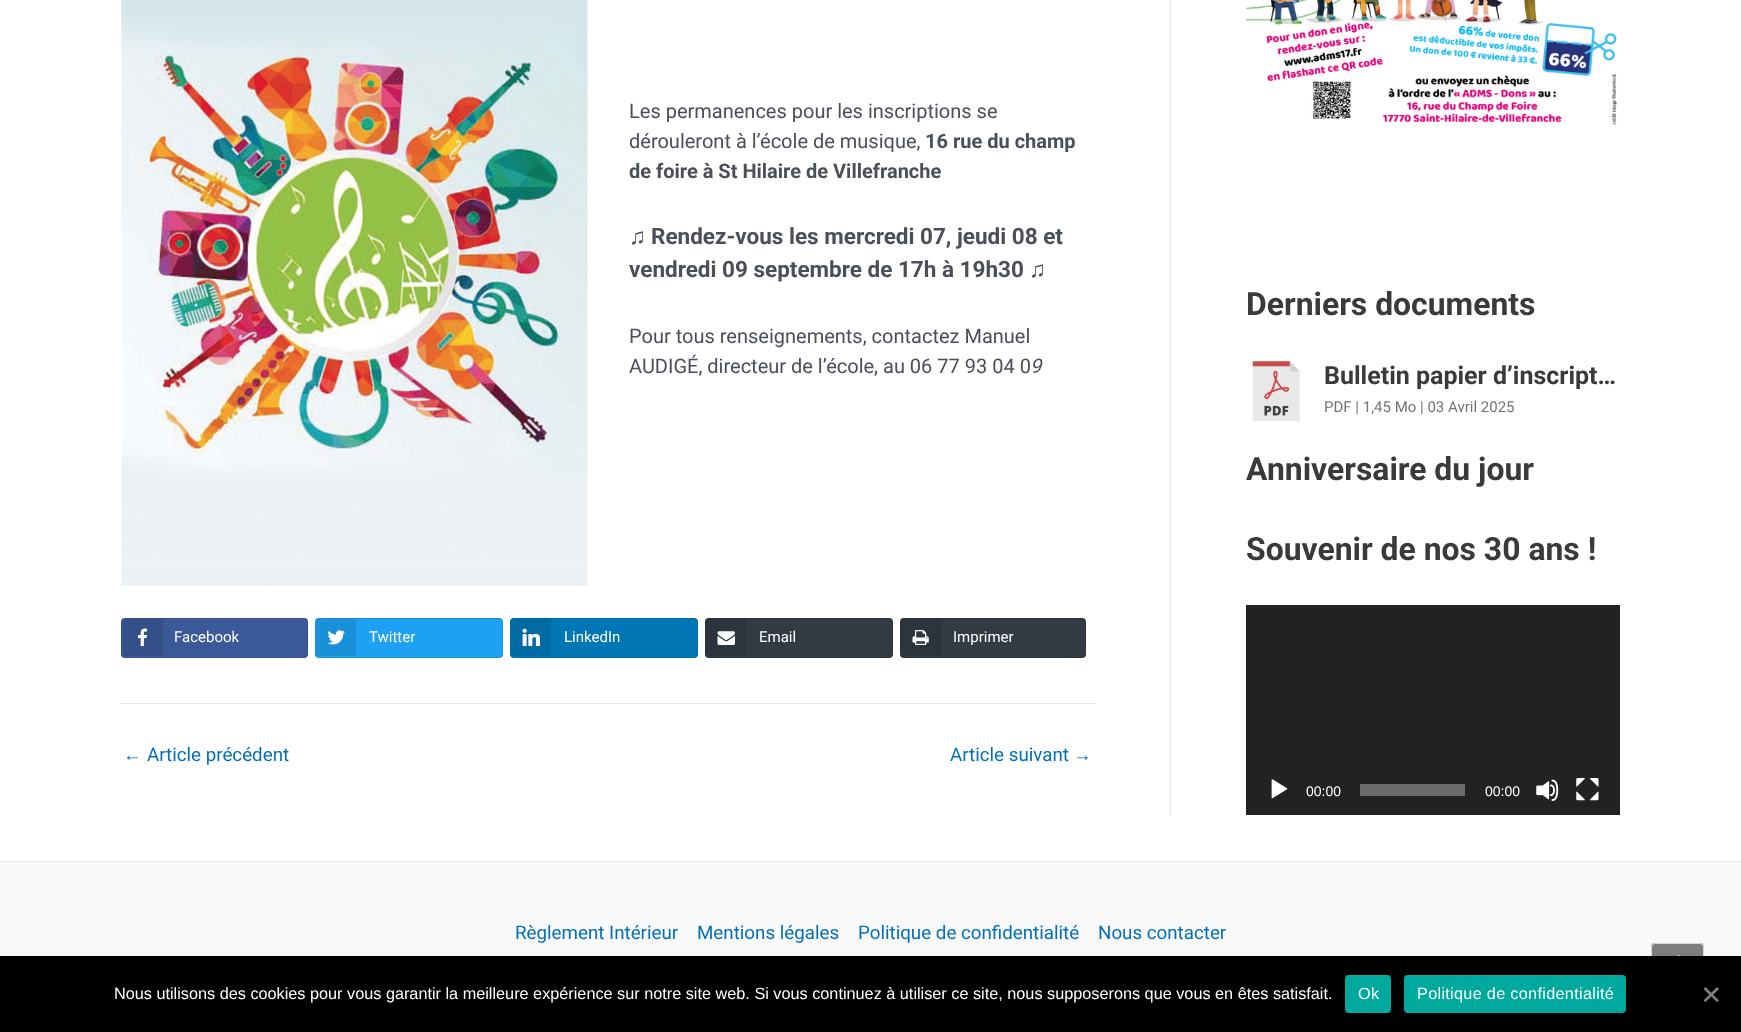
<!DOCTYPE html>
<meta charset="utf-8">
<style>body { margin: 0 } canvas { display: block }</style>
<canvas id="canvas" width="1741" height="1032"></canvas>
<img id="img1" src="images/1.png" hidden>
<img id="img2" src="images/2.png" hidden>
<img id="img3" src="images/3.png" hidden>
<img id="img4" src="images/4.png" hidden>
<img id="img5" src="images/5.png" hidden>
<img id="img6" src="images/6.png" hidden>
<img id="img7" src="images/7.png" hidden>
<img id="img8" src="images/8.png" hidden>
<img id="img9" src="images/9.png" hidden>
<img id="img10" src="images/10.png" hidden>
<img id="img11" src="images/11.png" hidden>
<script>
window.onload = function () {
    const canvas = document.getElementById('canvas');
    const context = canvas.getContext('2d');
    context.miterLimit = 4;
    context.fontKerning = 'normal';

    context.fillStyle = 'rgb(255, 255, 255)';
    context.fillRect(0, 0, 1741, 1032);
    context.drawImage(document.getElementById('img1'), 121, 0, 467, 586);
    context.fillStyle = 'rgb(59, 89, 152)';
    context.beginPath();
    context.roundRect(121, 618, 187, 40, 4);
    context.fill();
    context.beginPath();
    context.roundRect(121.5, 618.5, 186, 39, 3.5);
    context.strokeStyle = 'rgba(0, 0, 0, 0.1)';
    context.stroke();
    context.fillStyle = 'rgb(53, 80, 137)';
    context.beginPath();
    context.roundRect(123, 619, 40, 37, [2.5, 0, 0, 2.5]);
    context.fill();
    context.drawImage(document.getElementById('img2'), 137, 628, 11, 19);
    context.fillStyle = 'rgb(29, 161, 242)';
    context.beginPath();
    context.roundRect(315, 618, 188, 40, 4);
    context.fill();
    context.beginPath();
    context.roundRect(315.5, 618.5, 187, 39, 3.5);
    context.stroke();
    context.fillStyle = 'rgba(0, 0, 0, 0.1)';
    context.beginPath();
    context.roundRect(316, 619, 40, 37, [2.5, 0, 0, 2.5]);
    context.fill();
    context.drawImage(document.getElementById('img3'), 327, 630, 18, 15);
    context.fillStyle = 'rgb(0, 119, 181)';
    context.beginPath();
    context.roundRect(510, 618, 188, 40, 4);
    context.fill();
    context.beginPath();
    context.roundRect(510.5, 618.5, 187, 39, 3.5);
    context.stroke();
    context.fillStyle = 'rgba(0, 0, 0, 0.1)';
    context.beginPath();
    context.roundRect(511, 619, 40, 37, [2.5, 0, 0, 2.5]);
    context.fill();
    context.drawImage(document.getElementById('img4'), 522, 628, 18, 19);
    context.fillStyle = 'rgb(50, 59, 67)';
    context.beginPath();
    context.roundRect(705, 618, 188, 40, 4);
    context.fill();
    context.beginPath();
    context.roundRect(705.5, 618.5, 187, 39, 3.5);
    context.stroke();
    context.fillStyle = 'rgba(0, 0, 0, 0.1)';
    context.beginPath();
    context.roundRect(706, 619, 40, 37, [2.5, 0, 0, 2.5]);
    context.fill();
    context.drawImage(document.getElementById('img5'), 717, 631, 18, 14);
    context.fillStyle = 'rgb(50, 59, 67)';
    context.beginPath();
    context.roundRect(900, 618, 186, 40, 4);
    context.fill();
    context.beginPath();
    context.roundRect(900.5, 618.5, 185, 39, 3.5);
    context.stroke();
    context.fillStyle = 'rgba(0, 0, 0, 0.1)';
    context.beginPath();
    context.roundRect(901, 619, 40, 37, [2.5, 0, 0, 2.5]);
    context.fill();
    context.drawImage(document.getElementById('img6'), 912, 630, 17, 15);
    context.fillStyle = 'rgb(229, 229, 229)';
    context.fillRect(121, 703, 974, 1);
    context.fillRect(1170, 0, 1, 815);
    context.drawImage(document.getElementById('img7'), 1246, 0, 371, 125);
    context.drawImage(document.getElementById('img8'), 1252, 361, 48, 60);
    context.fillStyle = 'rgb(34, 34, 34)';
    context.fillRect(1246, 605, 374, 210);
    context.drawImage(document.getElementById('img9'), 1271, 779, 17, 20);
    context.fillStyle = 'rgb(107, 107, 107)';
    context.fillRect(1360, 784, 105, 12);
    context.drawImage(document.getElementById('img10'), 1536, 779, 23, 22);
    context.drawImage(document.getElementById('img11'), 1576, 778, 23, 23);
    context.fillStyle = 'rgb(249, 249, 249)';
    context.fillRect(0, 863, 1741, 93);
    context.fillStyle = 'rgb(125, 125, 125)';
    context.beginPath();
    context.roundRect(1651, 943, 53, 52, 4);
    context.fill();
    context.beginPath();
    context.roundRect(1651.5, 943.5, 52, 51, 3.5);
    context.strokeStyle = 'rgba(242, 242, 242, 0.8)';
    context.stroke();
    context.fillStyle = 'rgb(255, 255, 255)';
    context.beginPath();
    context.moveTo(1680.5, 985);
    context.lineTo(1677, 985);
    context.lineTo(1677, 962.5);
    context.lineTo(1669.5, 970);
    context.lineTo(1665.5, 968);
    context.lineTo(1679, 955);
    context.lineTo(1692, 968);
    context.lineTo(1688, 970);
    context.lineTo(1680.5, 962.5);
    context.closePath();
    context.fill();
    context.fillStyle = 'rgb(230, 230, 230)';
    context.fillRect(0, 861, 1741, 1);
    context.fillStyle = 'rgb(0, 0, 0)';
    context.fillRect(0, 956, 1741, 76);
    context.fillStyle = 'rgb(0, 169, 157)';
    context.beginPath();
    context.roundRect(1345, 975, 46, 38, 4);
    context.fill();
    context.beginPath();
    context.roundRect(1404, 975, 222, 38, 4);
    context.fill();
    context.fillStyle = 'rgb(128, 128, 128)';
    context.beginPath();
    context.moveTo(1717, 987);
    context.lineTo(1719, 989);
    context.lineTo(1705.5, 1002);
    context.lineTo(1703.5, 1000.5);
    context.closePath();
    context.fill();
    context.beginPath();
    context.moveTo(1703.5, 989);
    context.lineTo(1705.5, 987);
    context.lineTo(1719, 1000.5);
    context.lineTo(1717, 1002);
    context.closePath();
    context.fill();
    context.font = '20px Roboto';
    context.fillStyle = 'rgb(75, 79, 88)';
    context.fillText('Les permanences pour les inscriptions se', 629, 118);
    context.fillText('dérouleront à l’école de musique,', 629, 148);
    context.font = 'bold 20px Roboto';
    context.fillText('16 rue du champ', 925, 148);
    context.fillText('de foire à St Hilaire de Villefranche', 629, 178);
    context.font = 'italic 22.5px Liberation Sans';
    context.fillText('♫', 629, 244);
    context.font = 'bold 22.5px Roboto';
    context.fillText('Rendez-vous les mercredi 07, jeudi 08 et', 651, 244);
    context.fillText('vendredi 09 septembre de 17h à 19h30', 629, 277);
    context.font = 'italic 22.5px Liberation Sans';
    context.fillText('♫', 1029, 277);
    context.font = '20px Roboto';
    context.fillText('Pour tous renseignements, contactez Manuel', 629, 343);
    context.fillText('AUDIGÉ, directeur de l’école, au 06 77 93 04 0', 629, 373);
    context.font = 'italic 20px Roboto';
    context.fillText('9', 1030, 373);
    context.font = '15px Roboto';
    context.fillStyle = 'rgb(255, 255, 255)';
    context.fillText('Facebook', 174, 642);
    context.fillText('Twitter', 369, 642);
    context.fillText('LinkedIn', 564, 642);
    context.fillText('Email', 759, 642);
    context.fillText('Imprimer', 953, 642);
    context.font = '18.75px Liberation Sans';
    context.fillStyle = 'rgb(1, 112, 185)';
    context.fillText('←', 123, 761);
    context.font = '18.75px Roboto';
    context.fillText('Article précédent', 147, 761);
    context.fillText('Article suivant', 950, 761);
    context.font = '18.75px Liberation Sans';
    context.fillText('→', 1073, 761);
    context.font = 'bold 31.9px Roboto';
    context.fillStyle = 'rgb(58, 58, 58)';
    context.fillText('Derniers documents', 1246, 315);
    context.font = 'bold 25px Roboto';
    context.fillText('Bulletin papier d’inscript…', 1324, 384);
    context.font = '15px Roboto';
    context.fillStyle = 'rgb(108, 117, 125)';
    context.fillText('PDF | 1,45 Mo | 03 Avril 2025', 1324, 412);
    context.font = 'bold 31.9px Roboto';
    context.fillStyle = 'rgb(58, 58, 58)';
    context.fillText('Anniversaire du jour', 1246, 480);
    context.fillText('Souvenir de nos 30 ans !', 1246, 560);
    context.font = '14px Liberation Sans';
    context.fillStyle = 'rgb(255, 255, 255)';
    context.fillText('00:00', 1306, 796);
    context.fillText('00:00', 1485, 796);
    context.font = '18.75px Roboto';
    context.fillStyle = 'rgb(1, 112, 185)';
    context.fillText('Règlement Intérieur', 515, 939);
    context.fillText('Mentions légales', 697, 939);
    context.fillText('Politique de confidentialité', 858, 939);
    context.fillText('Nous contacter', 1098, 939);
    context.font = '16.25px Liberation Sans';
    context.fillStyle = 'rgb(255, 255, 255)';
    context.fillText('Nous utilisons des cookies pour vous garantir la meilleure expérience sur notre site web. Si vous continuez à utiliser ce site, nous supposerons que vous en êtes satisfait.', 114, 999);
    context.letterSpacing = '0.3px';
    context.fillText('Ok', 1358, 999);
    context.fillText('Politique de confidentialité', 1417, 999);
};
</script>
